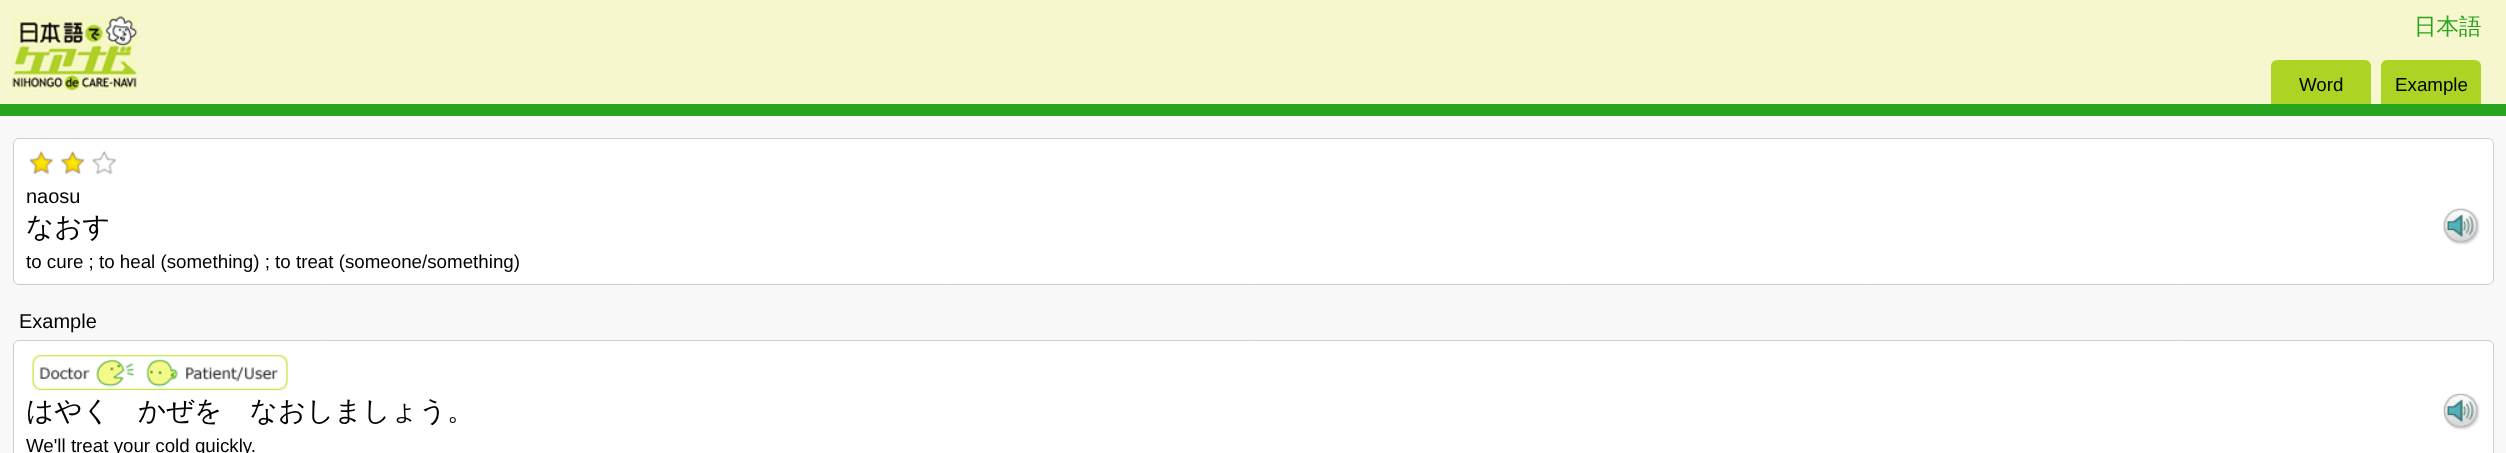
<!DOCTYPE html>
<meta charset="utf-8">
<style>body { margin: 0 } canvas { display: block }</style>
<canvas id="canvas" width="2506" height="453"></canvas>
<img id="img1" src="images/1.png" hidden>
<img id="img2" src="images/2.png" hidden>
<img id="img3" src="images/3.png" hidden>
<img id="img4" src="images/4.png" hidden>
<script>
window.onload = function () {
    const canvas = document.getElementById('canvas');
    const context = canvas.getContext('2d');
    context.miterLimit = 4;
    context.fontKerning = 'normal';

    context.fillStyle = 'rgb(247, 247, 207)';
    context.fillRect(0, 0, 2506, 453);
    context.drawImage(document.getElementById('img1'), 12, 16, 126, 76);
    context.fillStyle = 'rgb(171, 212, 36)';
    context.beginPath();
    context.roundRect(2271, 60, 100, 44, [6, 6, 0, 0]);
    context.fill();
    context.beginPath();
    context.roundRect(2381, 60, 100, 44, [6, 6, 0, 0]);
    context.fill();
    context.fillStyle = 'rgb(248, 248, 248)';
    context.fillRect(0, 116, 2506, 337);
    context.fillStyle = 'rgb(41, 164, 30)';
    context.fillRect(0, 104, 2506, 12);
    context.fillStyle = 'rgb(255, 255, 255)';
    context.beginPath();
    context.roundRect(13.5, 138.5, 2480, 146, 5.5);
    context.fill();
    context.strokeStyle = 'rgb(204, 204, 204)';
    context.stroke();
    context.drawImage(document.getElementById('img2'), 29, 151, 88, 23);
    context.drawImage(document.getElementById('img3'), 2443, 208, 37, 37);
    context.beginPath();
    context.roundRect(13.5, 340.5, 2480, 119, 5.5);
    context.fill();
    context.stroke();
    context.drawImage(document.getElementById('img4'), 32, 354, 256, 37);
    context.drawImage(document.getElementById('img3'), 2443, 393, 37, 37);
    context.font = '500 22.5px WenQuanYi Zen Hei';
    context.fillStyle = 'rgb(41, 164, 30)';
    context.fillText('日本語', 2414, 34);
    context.font = '18.75px Liberation Sans';
    context.fillStyle = 'rgb(0, 0, 0)';
    context.fillText('Word', 2299, 91);
    context.fillText('Example', 2395, 91);
    context.font = '20px Liberation Sans';
    context.fillText('naosu', 26, 203);
    context.font = '500 27.5px WenQuanYi Zen Hei';
    context.fillText('なおす', 26, 236);
    context.font = '18.75px Liberation Sans';
    context.fillText('to cure ; to heal (something) ; to treat (someone/something)', 26, 268);
    context.font = '20px Liberation Sans';
    context.fillText('Example', 19, 328);
    context.font = '500 27.5px WenQuanYi Zen Hei';
    context.fillText('はやく　かぜを　なおしましょう。', 26, 420);
    context.font = '18.75px Liberation Sans';
    context.fillText('We\'ll treat your cold quickly.', 26, 452);
};
</script>
